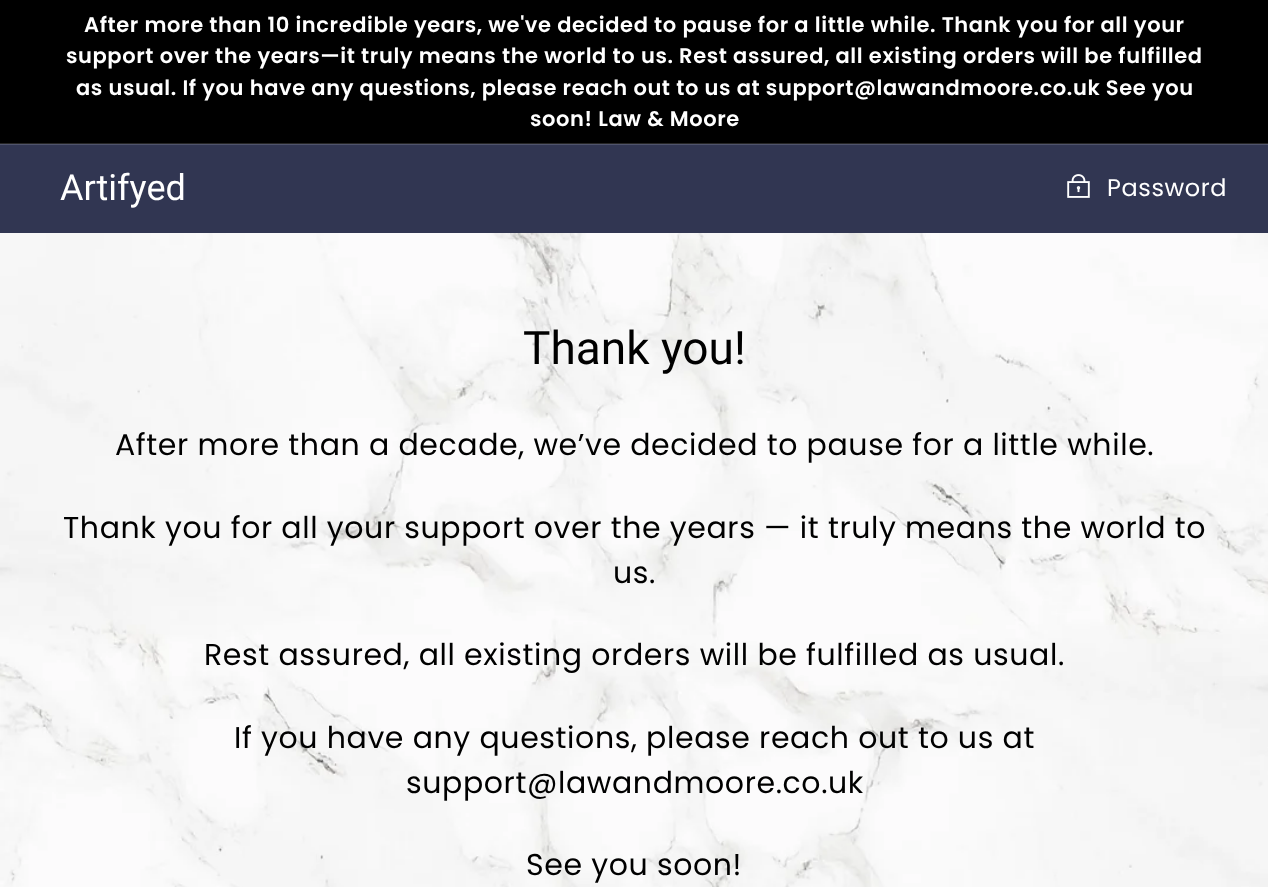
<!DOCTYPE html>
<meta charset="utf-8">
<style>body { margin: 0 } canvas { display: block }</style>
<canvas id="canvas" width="1268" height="887"></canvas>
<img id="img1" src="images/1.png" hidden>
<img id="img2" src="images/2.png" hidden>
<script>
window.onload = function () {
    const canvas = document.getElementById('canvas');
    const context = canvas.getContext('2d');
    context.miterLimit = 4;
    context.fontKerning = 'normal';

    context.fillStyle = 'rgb(255, 255, 255)';
    context.fillRect(0, 0, 1268, 887);
    context.fillStyle = 'rgb(0, 0, 0)';
    context.fillRect(0, 0, 1268, 143);
    context.fillStyle = 'rgb(38, 38, 38)';
    context.fillRect(0, 143, 1268, 1);
    context.fillStyle = 'rgb(49, 54, 82)';
    context.fillRect(0, 145, 1268, 88);
    context.fillStyle = 'rgb(80, 84, 108)';
    context.fillRect(0, 144, 1268, 1);
    context.drawImage(document.getElementById('img1'), 1067, 174, 23, 24);
    context.drawImage(document.getElementById('img2'), 0, 233, 1268, 654);
    context.letterSpacing = '0.6px';
    context.font = '600 21px Poppins';
    context.fillStyle = 'rgb(255, 255, 255)';
    context.fillText('After more than 10 incredible years, we\'ve decided to pause for a little while. Thank you for all your', 84, 32);
    context.fillText('support over the years—it truly means the world to us. Rest assured, all existing orders will be fulfilled', 66, 63);
    context.fillText('as usual. If you have any questions, please reach out to us at support@lawandmoore.co.uk See you', 76, 95);
    context.fillText('soon! Law & Moore', 530, 126);
    context.letterSpacing = '0px';
    context.font = '36px Roboto';
    context.fillText('Artifyed', 60, 200);
    context.letterSpacing = '0.6px';
    context.font = '24px Poppins';
    context.fillText('Password', 1107, 196);
    context.letterSpacing = '0px';
    context.font = '46px Roboto';
    context.fillStyle = 'rgb(0, 0, 0)';
    context.fillText('Thank you!', 523, 364);
    context.letterSpacing = '0.6px';
    context.font = '30px Poppins';
    context.fillText('After more than a decade, we’ve decided to pause for a little while.', 115, 455);
    context.fillText('Thank you for all your support over the years — it truly means the world to', 63, 538);
    context.fillText('us.', 613, 583);
    context.fillText('Rest assured, all existing orders will be fulfilled as usual.', 204, 665);
    context.fillText('If you have any questions, please reach out to us at', 234, 748);
    context.fillText('support@lawandmoore.co.uk', 406, 793);
    context.fillText('See you soon!', 526, 875);
};
</script>
